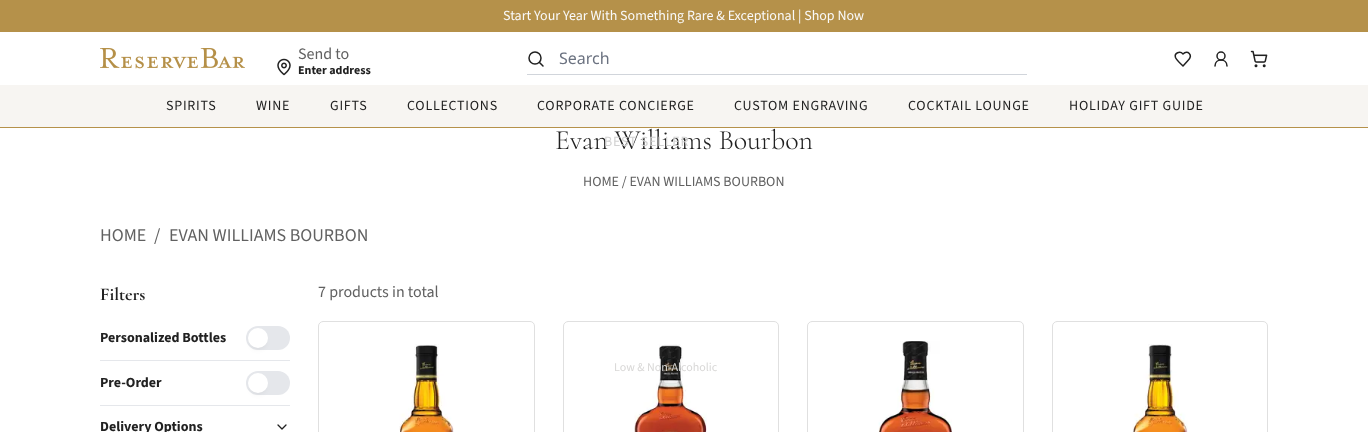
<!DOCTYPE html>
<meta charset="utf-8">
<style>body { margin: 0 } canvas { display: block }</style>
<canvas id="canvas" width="1368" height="432"></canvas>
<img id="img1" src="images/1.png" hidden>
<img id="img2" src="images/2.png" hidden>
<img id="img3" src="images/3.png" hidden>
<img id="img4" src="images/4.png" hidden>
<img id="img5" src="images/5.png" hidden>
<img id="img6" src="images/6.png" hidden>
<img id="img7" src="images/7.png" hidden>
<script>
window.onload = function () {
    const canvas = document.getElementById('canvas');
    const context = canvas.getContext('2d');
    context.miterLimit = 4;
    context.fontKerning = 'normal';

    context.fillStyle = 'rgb(255, 255, 255)';
    context.fillRect(0, 0, 1368, 432);
    context.fillStyle = 'rgb(181, 145, 74)';
    context.fillRect(0, 0, 1368, 32);
    context.drawImage(document.getElementById('img1'), 100, 48, 145, 21);
    context.drawImage(document.getElementById('img2'), 277, 58, 14, 18);
    context.beginPath();
    context.arc(535, 58, 6, 0, 2 * Math.PI);
    context.strokeStyle = 'rgb(33, 33, 33)';
    context.lineWidth = 1.5;
    context.stroke();
    context.beginPath();
    context.moveTo(543, 66);
    context.lineTo(539.5, 62.5);
    context.lineCap = 'round';
    context.lineJoin = 'round';
    context.stroke();
    context.fillStyle = 'rgb(209, 213, 219)';
    context.fillRect(527, 74, 500, 1);
    context.beginPath();
    context.moveTo(1188, 60.5);
    context.bezierCurveTo(1193.5, 55, 1187.5, 49.5, 1183, 54);
    context.bezierCurveTo(1180, 50.5, 1174, 53, 1175.5, 57.5);
    context.bezierCurveTo(1176.5, 60, 1181, 64, 1183, 66);
    context.closePath();
    context.stroke();
    context.beginPath();
    context.arc(1221, 56, 4, 0, 2 * Math.PI);
    context.stroke();
    context.beginPath();
    context.moveTo(1227, 66);
    context.bezierCurveTo(1227, 58, 1215, 58, 1215, 66);
    context.stroke();
    context.drawImage(document.getElementById('img3'), 1250, 50, 18, 18);
    context.fillStyle = 'rgb(247, 245, 242)';
    context.fillRect(0, 85, 1368, 42);
    context.fillStyle = 'rgb(181, 145, 74)';
    context.fillRect(0, 127, 1368, 1);
    context.fillStyle = 'rgb(229, 231, 235)';
    context.fillRect(100, 360, 190, 1);
    context.beginPath();
    context.roundRect(246, 326, 44, 24, 12);
    context.fill();
    context.fillStyle = 'rgba(0, 0, 0, 0.1)';
    context.filter = 'blur(3px)';
    context.beginPath();
    context.roundRect(252, 336, 12, 12, 6);
    context.fill();
    context.filter = 'none';
    context.fillStyle = 'rgb(255, 255, 255)';
    context.beginPath();
    context.arc(258, 338, 10, 0, 2 * Math.PI);
    context.fill();
    context.fillStyle = 'rgb(229, 231, 235)';
    context.fillRect(100, 405, 190, 1);
    context.beginPath();
    context.roundRect(246, 371, 44, 24, 12);
    context.fill();
    context.fillStyle = 'rgba(0, 0, 0, 0.1)';
    context.filter = 'blur(3px)';
    context.beginPath();
    context.roundRect(252, 381, 12, 12, 6);
    context.fill();
    context.filter = 'none';
    context.fillStyle = 'rgb(255, 255, 255)';
    context.beginPath();
    context.arc(258, 383, 10, 0, 2 * Math.PI);
    context.fill();
    context.beginPath();
    context.moveTo(278, 425);
    context.lineTo(282, 429);
    context.lineTo(286, 425);
    context.lineWidth = 1.3;
    context.stroke();
    context.beginPath();
    context.roundRect(318.5, 321.5, 216, 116, 4.5);
    context.strokeStyle = 'rgb(224, 224, 224)';
    context.lineWidth = 1;
    context.lineJoin = 'miter';
    context.stroke();
    context.drawImage(document.getElementById('img4'), 399, 344, 55, 88);
    context.beginPath();
    context.roundRect(563.5, 321.5, 215, 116, 4.5);
    context.stroke();
    context.drawImage(document.getElementById('img5'), 634, 344, 73, 88);
    context.beginPath();
    context.roundRect(807.5, 321.5, 216, 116, 4.5);
    context.stroke();
    context.drawImage(document.getElementById('img6'), 878, 341, 74, 91);
    context.beginPath();
    context.roundRect(1052.5, 321.5, 215, 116, 4.5);
    context.stroke();
    context.drawImage(document.getElementById('img7'), 1132, 344, 56, 88);
    context.font = '14px "Source Sans 3"';
    context.fillStyle = 'rgb(250, 250, 250)';
    context.fillText('Start Your Year With Something Rare & Exceptional | Shop Now', 503, 20);
    context.font = '16px "Source Sans 3"';
    context.fillStyle = 'rgb(97, 97, 97)';
    context.fillText('Send to', 298, 59);
    context.save();
    context.beginPath();
    context.rect(298, 66, 73, 10);
    context.clip();
    context.font = 'bold 12px "Source Sans 3"';
    context.fillStyle = 'rgb(33, 33, 33)';
    context.fillText('Enter address', 298, 74);
    context.restore();
    context.font = '16px Noto Sans';
    context.fillStyle = 'rgb(107, 114, 128)';
    context.fillText('Search', 559, 64);
    context.font = '12px "Source Sans 3"';
    context.fillStyle = 'rgb(217, 216, 215)';
    context.fillText('Low & Non-Alcoholic', 614, 371);
    context.letterSpacing = '0.75px';
    context.font = '14px "Source Sans 3"';
    context.fillStyle = 'rgb(33, 33, 33)';
    context.fillText('SPIRITS', 166, 110);
    context.fillText('WINE', 256, 110);
    context.fillText('GIFTS', 330, 110);
    context.fillText('COLLECTIONS', 407, 110);
    context.fillText('CORPORATE CONCIERGE', 537, 110);
    context.fillText('CUSTOM ENGRAVING', 734, 110);
    context.fillText('COCKTAIL LOUNGE', 908, 110);
    context.fillText('HOLIDAY GIFT GUIDE', 1069, 110);
    context.letterSpacing = '0px';
    context.font = '300 28px Cormorant';
    context.fillText('Evan Williams Bourbon', 555, 149);
    context.letterSpacing = '0.75px';
    context.font = '14px "Source Sans 3"';
    context.fillStyle = 'rgb(210, 210, 210)';
    context.fillText('BEST SELLER', 604, 146);
    context.letterSpacing = '0px';
    context.fillStyle = 'rgb(97, 97, 97)';
    context.fillText('HOME / EVAN WILLIAMS BOURBON', 583, 186);
    context.font = '18px "Source Sans 3"';
    context.fillText('HOME', 100, 241);
    context.fillText('/', 154, 241);
    context.fillText('EVAN WILLIAMS BOURBON', 169, 241);
    context.beginPath();
    context.moveTo(248.5, 239.5);
    context.lineTo(245.5, 236.5);
    context.strokeStyle = 'rgb(255, 255, 255)';
    context.lineWidth = 1.4;
    context.lineJoin = 'round';
    context.stroke();
    context.font = 'bold 18px Cormorant';
    context.fillStyle = 'rgb(33, 33, 33)';
    context.fillText('Filters', 100, 300);
    context.font = 'bold 14px "Source Sans 3"';
    context.fillText('Personalized Bottles', 100, 342);
    context.fillText('Pre-Order', 100, 387);
    context.fillText('Delivery Options', 100, 431);
    context.font = '16px "Source Sans 3"';
    context.fillStyle = 'rgb(97, 97, 97)';
    context.fillText('7 products in total', 318, 297);
};
</script>
